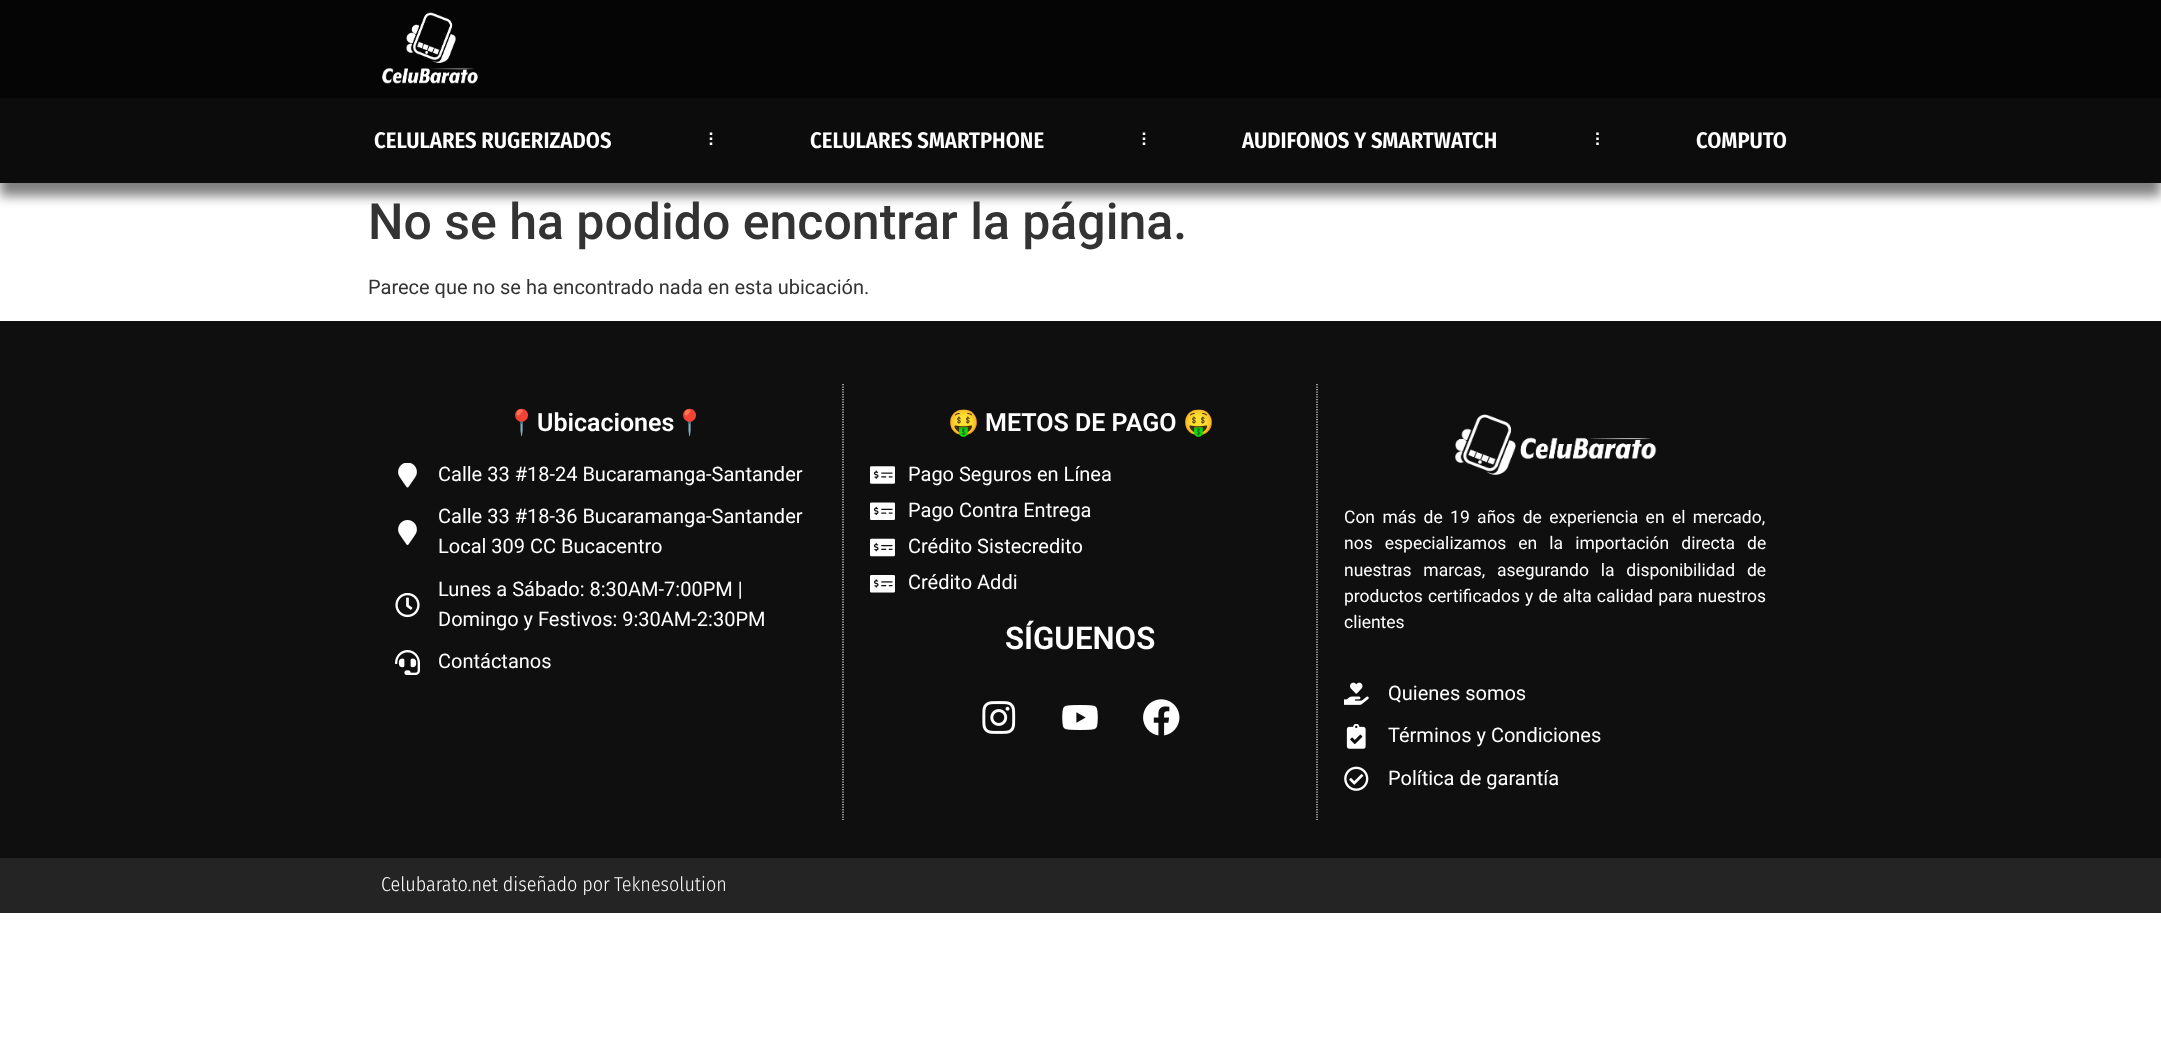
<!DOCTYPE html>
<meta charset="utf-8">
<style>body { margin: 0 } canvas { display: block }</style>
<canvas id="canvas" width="2161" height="1039"></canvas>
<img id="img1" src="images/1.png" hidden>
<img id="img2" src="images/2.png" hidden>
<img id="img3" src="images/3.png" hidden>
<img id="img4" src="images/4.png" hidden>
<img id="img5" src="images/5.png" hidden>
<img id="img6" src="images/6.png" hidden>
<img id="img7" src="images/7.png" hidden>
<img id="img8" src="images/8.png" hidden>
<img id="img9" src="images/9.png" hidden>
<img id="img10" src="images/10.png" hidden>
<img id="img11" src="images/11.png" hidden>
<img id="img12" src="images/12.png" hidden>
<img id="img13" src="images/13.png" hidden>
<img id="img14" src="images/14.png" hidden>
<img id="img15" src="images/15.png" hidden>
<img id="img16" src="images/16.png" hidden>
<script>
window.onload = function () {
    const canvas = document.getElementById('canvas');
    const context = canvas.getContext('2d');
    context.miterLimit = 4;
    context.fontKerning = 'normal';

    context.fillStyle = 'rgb(255, 255, 255)';
    context.fillRect(0, 0, 2161, 1039);
    context.fillStyle = 'rgb(5, 5, 5)';
    context.fillRect(0, 0, 2161, 98);
    context.drawImage(document.getElementById('img1'), 382, 12, 96, 72);
    context.fillStyle = 'rgba(0, 0, 0, 0.5)';
    context.filter = 'blur(6px)';
    context.beginPath();
    context.rect(0, 111, 2161, 85);
    context.fill();
    context.filter = 'none';
    context.fillStyle = 'rgb(12, 12, 12)';
    context.fillRect(0, 98, 2161, 85);
    context.beginPath();
    context.moveTo(711, 132.5);
    context.lineTo(711, 135);
    context.moveTo(711, 137.5);
    context.lineTo(711, 140);
    context.moveTo(711, 142.5);
    context.lineTo(711, 145);
    context.strokeStyle = 'rgb(255, 255, 255)';
    context.lineWidth = 2.5;
    context.stroke();
    context.beginPath();
    context.moveTo(1144, 132.5);
    context.lineTo(1144, 135);
    context.moveTo(1144, 137.5);
    context.lineTo(1144, 140);
    context.moveTo(1144, 142.5);
    context.lineTo(1144, 145);
    context.stroke();
    context.beginPath();
    context.moveTo(1597.5, 132.5);
    context.lineTo(1597.5, 135);
    context.moveTo(1597.5, 137.5);
    context.lineTo(1597.5, 140);
    context.moveTo(1597.5, 142.5);
    context.lineTo(1597.5, 145);
    context.stroke();
    context.fillStyle = 'rgb(15, 15, 15)';
    context.fillRect(0, 321, 2161, 537);
    context.drawImage(document.getElementById('img2'), 398, 463, 19, 25);
    context.drawImage(document.getElementById('img3'), 398, 520, 19, 25);
    context.drawImage(document.getElementById('img4'), 395, 593, 25, 25);
    context.drawImage(document.getElementById('img5'), 395, 650, 25, 25);
    context.beginPath();
    context.moveTo(1317, 384);
    context.lineTo(1317, 820);
    context.strokeStyle = 'rgb(245, 237, 237)';
    context.lineWidth = 1.2;
    context.setLineDash([1.25, 1.25]);
    context.stroke();
    context.beginPath();
    context.moveTo(843, 384);
    context.lineTo(843, 820);
    context.stroke();
    context.drawImage(document.getElementById('img6'), 870, 466, 25, 18);
    context.drawImage(document.getElementById('img7'), 870, 502, 25, 18);
    context.drawImage(document.getElementById('img8'), 870, 538, 25, 19);
    context.drawImage(document.getElementById('img9'), 870, 575, 25, 18);
    context.drawImage(document.getElementById('img10'), 982, 701, 34, 33);
    context.drawImage(document.getElementById('img11'), 1062, 705, 36, 25);
    context.drawImage(document.getElementById('img12'), 1143, 699, 37, 37);
    context.drawImage(document.getElementById('img13'), 1455, 414, 202, 61);
    context.drawImage(document.getElementById('img14'), 1344, 682, 25, 23);
    context.drawImage(document.getElementById('img15'), 1346, 724, 20, 25);
    context.drawImage(document.getElementById('img16'), 1344, 766, 25, 25);
    context.fillStyle = 'rgb(36, 36, 36)';
    context.fillRect(0, 858, 2161, 55);
    context.font = '600 22.5px Fira Sans Condensed';
    context.fillStyle = 'rgb(255, 255, 255)';
    context.fillText('CELULARES RUGERIZADOS', 374, 148);
    context.fillText('CELULARES SMARTPHONE', 810, 148);
    context.fillText('AUDIFONOS Y SMARTWATCH', 1242, 148);
    context.fillText('COMPUTO', 1696, 148);
    context.font = '500 50px Roboto';
    context.fillStyle = 'rgb(51, 51, 51)';
    context.fillText('No se ha podido encontrar la página.', 368, 239);
    context.font = '20px Roboto';
    context.fillText('Parece que no se ha encontrado nada en esta ubicación.', 368, 294);
    context.font = 'bold 25px Noto Color Emoji';
    context.fillStyle = 'rgb(255, 255, 255)';
    context.fillText('📍', 506, 431);
    context.font = '600 25px Roboto';
    context.fillText('Ubicaciones', 537, 431);
    context.font = 'bold 25px Noto Color Emoji';
    context.fillText('📍', 674, 431);
    context.font = '20px Roboto';
    context.fillText('Calle 33 #18-24 Bucaramanga-Santander', 438, 481);
    context.fillText('Calle 33 #18-36 Bucaramanga-Santander', 438, 523);
    context.fillText('Local 309 CC Bucacentro', 438, 553);
    context.fillText('Lunes a Sábado: 8:30AM-7:00PM |', 438, 596);
    context.fillText('Domingo y Festivos: 9:30AM-2:30PM', 438, 626);
    context.fillText('Contáctanos', 438, 668);
    context.font = 'bold 25px Noto Color Emoji';
    context.fillText('🤑', 948, 431);
    context.font = '600 25px Roboto';
    context.fillText('METOS DE PAGO', 985, 431);
    context.font = 'bold 25px Noto Color Emoji';
    context.fillText('🤑', 1183, 431);
    context.font = '20px Roboto';
    context.fillText('Pago Seguros en Línea', 908, 481);
    context.fillText('Pago Contra Entrega', 908, 517);
    context.fillText('Crédito Sistecredito', 908, 553);
    context.fillText('Crédito Addi', 908, 589);
    context.font = '600 31.25px Roboto';
    context.fillText('SÍGUENOS', 1005, 649);
    context.wordSpacing = '3px';
    context.font = '17.5px Roboto';
    context.fillText('Con más de 19 años de experiencia en el mercado,', 1344, 523);
    context.wordSpacing = '7.75px';
    context.fillText('nos especializamos en la importación directa de', 1344, 549);
    context.wordSpacing = '7.5px';
    context.fillText('nuestras marcas, asegurando la disponibilidad de', 1344, 576);
    context.wordSpacing = '0.75px';
    context.fillText('productos certificados y de alta calidad para nuestros', 1344, 602);
    context.wordSpacing = '0px';
    context.fillText('clientes', 1344, 628);
    context.font = '20px Roboto';
    context.fillText('Quienes somos', 1388, 700);
    context.fillText('Términos y Condiciones', 1388, 742);
    context.fillText('Política de garantía', 1388, 785);
    context.font = '300 20px Fira Sans Condensed';
    context.fillText('Celubarato.net diseñado por', 381, 891);
    context.fillStyle = 'rgb(245, 245, 245)';
    context.fillText('Teknesolution', 614, 891);
};
</script>
